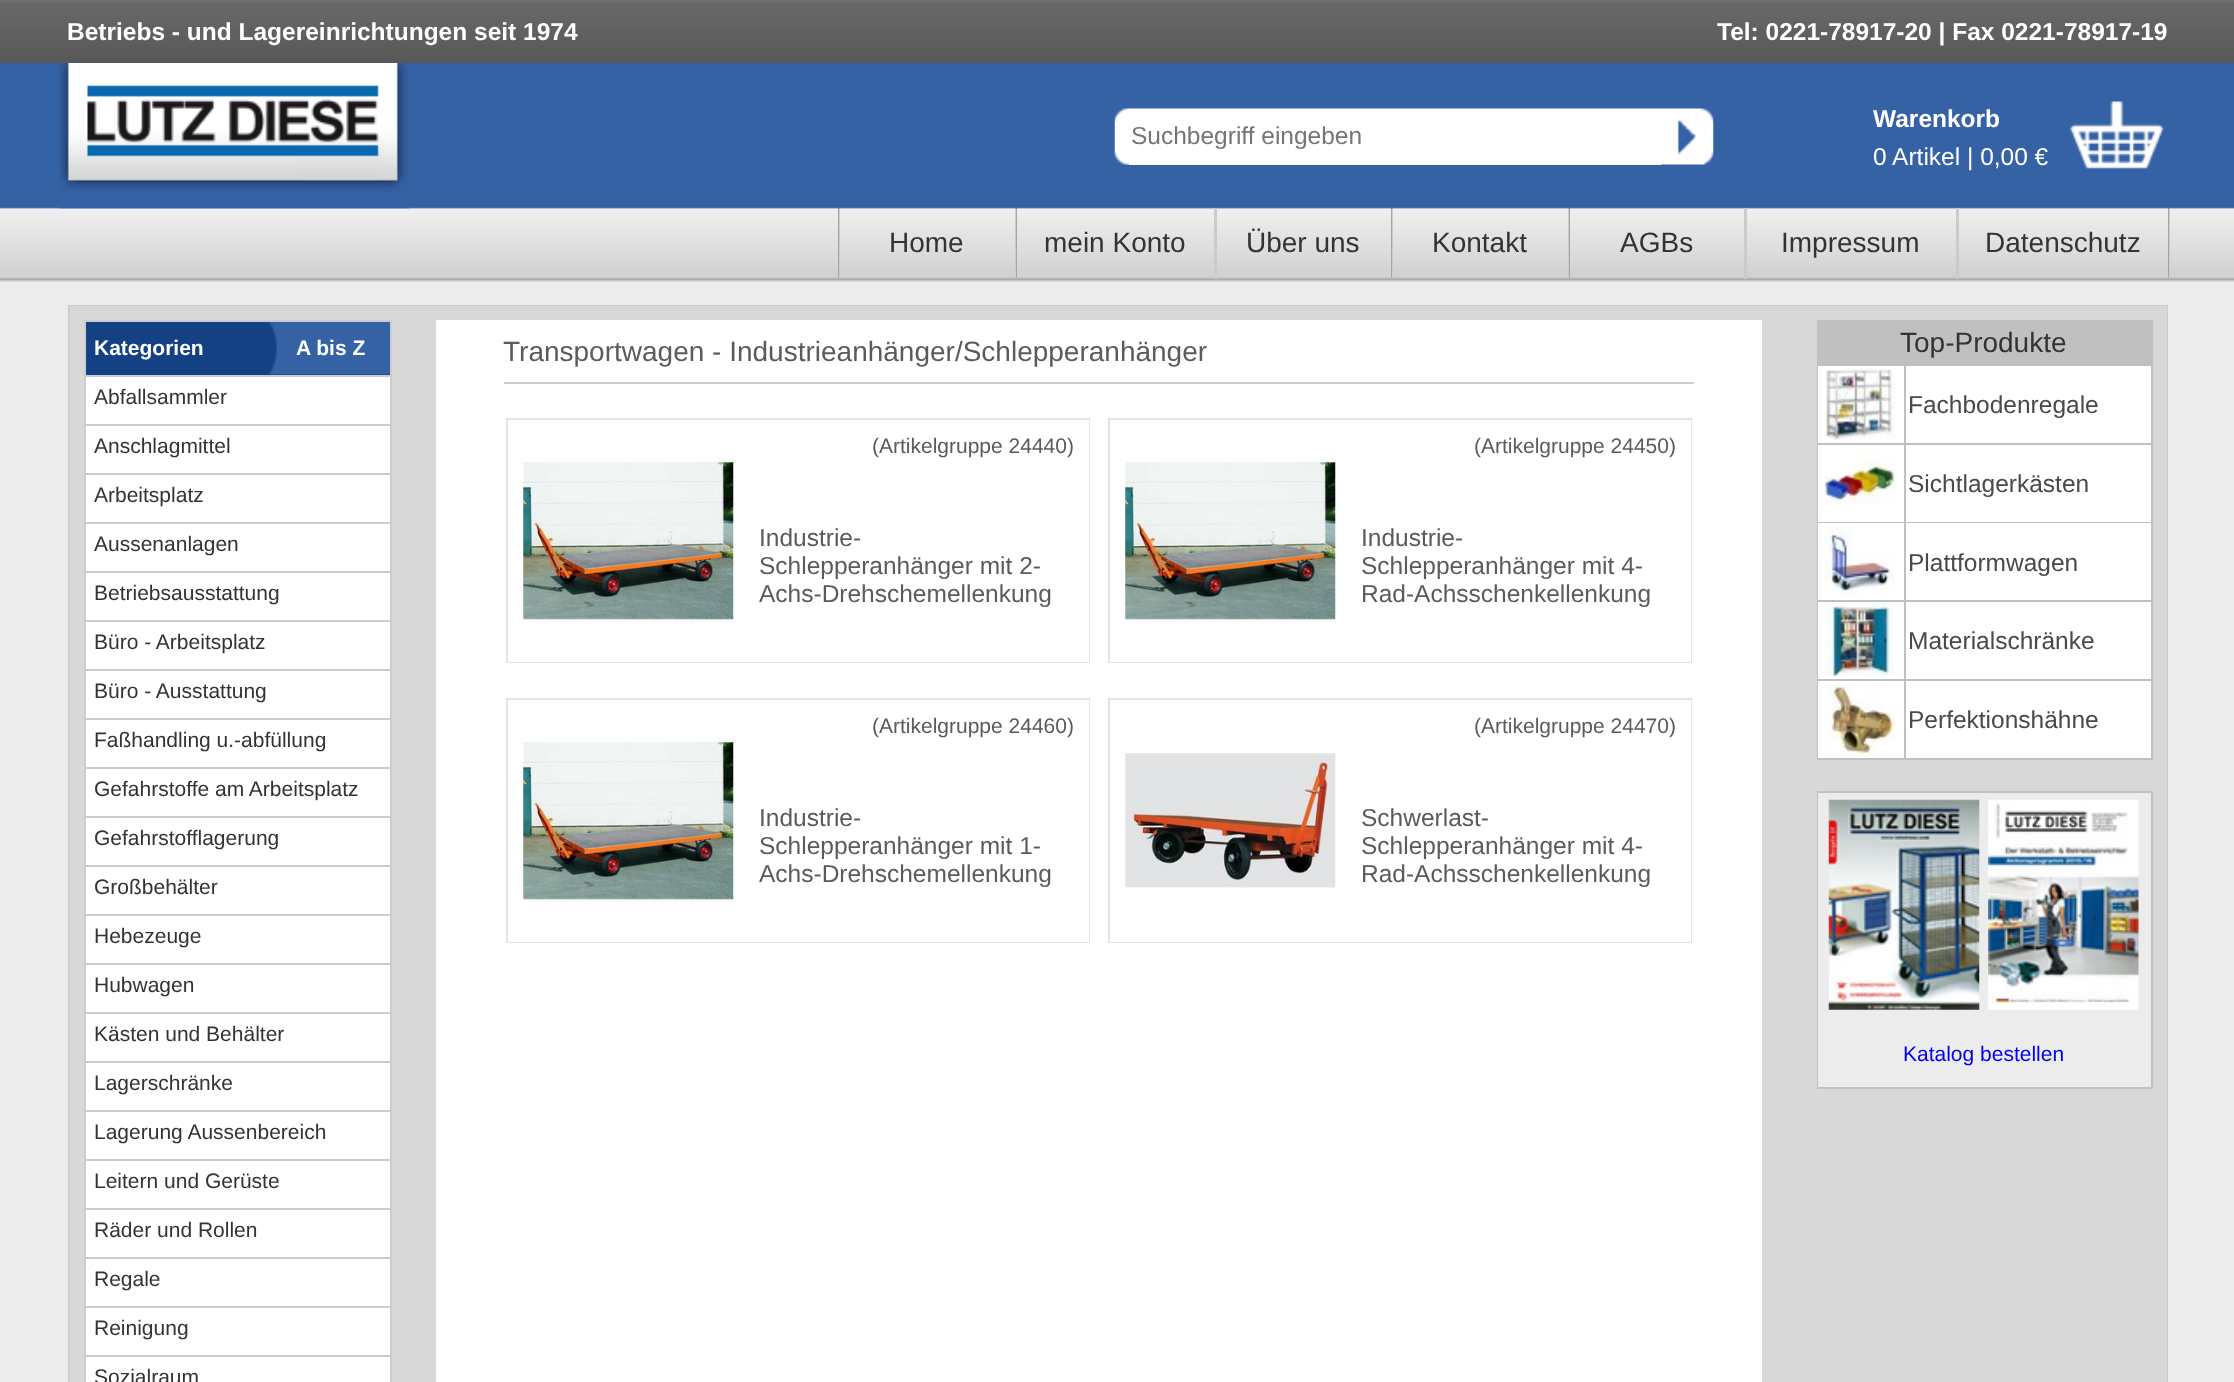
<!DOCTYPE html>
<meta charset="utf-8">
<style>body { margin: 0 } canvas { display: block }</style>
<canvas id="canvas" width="2234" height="1382"></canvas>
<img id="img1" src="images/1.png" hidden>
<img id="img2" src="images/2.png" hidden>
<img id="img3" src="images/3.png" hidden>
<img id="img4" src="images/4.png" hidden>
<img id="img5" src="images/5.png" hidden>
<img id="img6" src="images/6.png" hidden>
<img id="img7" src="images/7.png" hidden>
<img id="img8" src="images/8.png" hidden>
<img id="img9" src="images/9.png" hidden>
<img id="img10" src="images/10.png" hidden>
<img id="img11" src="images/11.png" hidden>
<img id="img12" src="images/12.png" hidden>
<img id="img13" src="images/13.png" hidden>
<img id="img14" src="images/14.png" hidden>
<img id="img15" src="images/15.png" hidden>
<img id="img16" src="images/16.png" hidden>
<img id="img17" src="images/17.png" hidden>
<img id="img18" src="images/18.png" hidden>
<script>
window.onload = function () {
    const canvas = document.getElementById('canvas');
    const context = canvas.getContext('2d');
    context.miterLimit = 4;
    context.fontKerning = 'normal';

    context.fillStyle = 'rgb(236, 236, 236)';
    context.fillRect(0, 0, 2234, 1382);
    context.drawImage(document.getElementById('img1'), 0, 0, 2234, 282);
    context.drawImage(document.getElementById('img2'), 59, 63, 351, 146);
    context.drawImage(document.getElementById('img3'), 1114, 108, 547, 57);
    context.drawImage(document.getElementById('img4'), 1660, 108, 54, 57);
    context.fillStyle = 'rgb(255, 255, 255)';
    context.fillRect(1129, 109, 532, 56);
    context.drawImage(document.getElementById('img5'), 2069, 101, 95, 68);
    context.fillStyle = 'rgb(51, 51, 51)';
    context.fillRect(838, 208, 2, 70);
    context.drawImage(document.getElementById('img6'), 838, 208, 2, 71);
    context.fillRect(1015, 208, 2, 70);
    context.drawImage(document.getElementById('img7'), 1015, 208, 2, 71);
    context.fillStyle = 'rgb(203, 203, 203)';
    context.fillRect(1214, 208, 3, 71);
    context.fillStyle = 'rgb(51, 51, 51)';
    context.fillRect(1391, 208, 2, 70);
    context.drawImage(document.getElementById('img6'), 1391, 208, 2, 71);
    context.fillRect(1568, 208, 2, 70);
    context.drawImage(document.getElementById('img7'), 1568, 208, 2, 71);
    context.fillStyle = 'rgb(203, 203, 203)';
    context.fillRect(1744, 208, 3, 71);
    context.fillRect(1956, 208, 3, 71);
    context.fillStyle = 'rgb(51, 51, 51)';
    context.fillRect(2168, 208, 2, 70);
    context.drawImage(document.getElementById('img6'), 2168, 208, 2, 71);
    context.fillStyle = 'rgb(204, 204, 204)';
    context.fillRect(68, 305, 2100, 1077);
    context.fillStyle = 'rgb(216, 216, 216)';
    context.fillRect(70, 306, 2097, 1076);
    context.fillStyle = 'rgb(20, 64, 132)';
    context.fillRect(86, 374, 304, 1);
    context.drawImage(document.getElementById('img8'), 86, 322, 304, 53);
    context.fillStyle = 'rgb(204, 204, 204)';
    context.fillRect(84, 320, 308, 2);
    context.fillRect(390, 320, 2, 55);
    context.fillRect(84, 320, 2, 55);
    context.fillStyle = 'rgb(255, 255, 255)';
    context.fillRect(86, 377, 304, 47);
    context.fillStyle = 'rgb(204, 204, 204)';
    context.fillRect(84, 375, 308, 2);
    context.fillRect(390, 375, 2, 49);
    context.fillRect(84, 375, 2, 49);
    context.fillStyle = 'rgb(255, 255, 255)';
    context.fillRect(86, 426, 304, 47);
    context.fillStyle = 'rgb(204, 204, 204)';
    context.fillRect(84, 424, 308, 2);
    context.fillRect(390, 424, 2, 49);
    context.fillRect(84, 424, 2, 49);
    context.fillStyle = 'rgb(255, 255, 255)';
    context.fillRect(86, 475, 304, 47);
    context.fillStyle = 'rgb(204, 204, 204)';
    context.fillRect(84, 473, 308, 2);
    context.fillRect(390, 473, 2, 49);
    context.fillRect(84, 473, 2, 49);
    context.fillStyle = 'rgb(255, 255, 255)';
    context.fillRect(86, 524, 304, 47);
    context.fillStyle = 'rgb(204, 204, 204)';
    context.fillRect(84, 522, 308, 2);
    context.fillRect(390, 522, 2, 49);
    context.fillRect(84, 522, 2, 49);
    context.fillStyle = 'rgb(255, 255, 255)';
    context.fillRect(86, 573, 304, 47);
    context.fillStyle = 'rgb(204, 204, 204)';
    context.fillRect(84, 571, 308, 2);
    context.fillRect(390, 571, 2, 49);
    context.fillRect(84, 571, 2, 49);
    context.fillStyle = 'rgb(255, 255, 255)';
    context.fillRect(86, 622, 304, 47);
    context.fillStyle = 'rgb(204, 204, 204)';
    context.fillRect(84, 620, 308, 2);
    context.fillRect(390, 620, 2, 49);
    context.fillRect(84, 620, 2, 49);
    context.fillStyle = 'rgb(255, 255, 255)';
    context.fillRect(86, 671, 304, 47);
    context.fillStyle = 'rgb(204, 204, 204)';
    context.fillRect(84, 669, 308, 2);
    context.fillRect(390, 669, 2, 49);
    context.fillRect(84, 669, 2, 49);
    context.fillStyle = 'rgb(255, 255, 255)';
    context.fillRect(86, 720, 304, 47);
    context.fillStyle = 'rgb(204, 204, 204)';
    context.fillRect(84, 718, 308, 2);
    context.fillRect(390, 718, 2, 49);
    context.fillRect(84, 718, 2, 49);
    context.fillStyle = 'rgb(255, 255, 255)';
    context.fillRect(86, 769, 304, 47);
    context.fillStyle = 'rgb(204, 204, 204)';
    context.fillRect(84, 767, 308, 2);
    context.fillRect(390, 767, 2, 49);
    context.fillRect(84, 767, 2, 49);
    context.fillStyle = 'rgb(255, 255, 255)';
    context.fillRect(86, 818, 304, 47);
    context.fillStyle = 'rgb(204, 204, 204)';
    context.fillRect(84, 816, 308, 2);
    context.fillRect(390, 816, 2, 49);
    context.fillRect(84, 816, 2, 49);
    context.fillStyle = 'rgb(255, 255, 255)';
    context.fillRect(86, 867, 304, 47);
    context.fillStyle = 'rgb(204, 204, 204)';
    context.fillRect(84, 865, 308, 2);
    context.fillRect(390, 865, 2, 49);
    context.fillRect(84, 865, 2, 49);
    context.fillStyle = 'rgb(255, 255, 255)';
    context.fillRect(86, 916, 304, 47);
    context.fillStyle = 'rgb(204, 204, 204)';
    context.fillRect(84, 914, 308, 2);
    context.fillRect(390, 914, 2, 49);
    context.fillRect(84, 914, 2, 49);
    context.fillStyle = 'rgb(255, 255, 255)';
    context.fillRect(86, 965, 304, 47);
    context.fillStyle = 'rgb(204, 204, 204)';
    context.fillRect(84, 963, 308, 2);
    context.fillRect(390, 963, 2, 49);
    context.fillRect(84, 963, 2, 49);
    context.fillStyle = 'rgb(255, 255, 255)';
    context.fillRect(86, 1014, 304, 47);
    context.fillStyle = 'rgb(204, 204, 204)';
    context.fillRect(84, 1012, 308, 2);
    context.fillRect(390, 1012, 2, 49);
    context.fillRect(84, 1012, 2, 49);
    context.fillStyle = 'rgb(255, 255, 255)';
    context.fillRect(86, 1063, 304, 47);
    context.fillStyle = 'rgb(204, 204, 204)';
    context.fillRect(84, 1061, 308, 2);
    context.fillRect(390, 1061, 2, 49);
    context.fillRect(84, 1061, 2, 49);
    context.fillStyle = 'rgb(255, 255, 255)';
    context.fillRect(86, 1112, 304, 47);
    context.fillStyle = 'rgb(204, 204, 204)';
    context.fillRect(84, 1110, 308, 2);
    context.fillRect(390, 1110, 2, 49);
    context.fillRect(84, 1110, 2, 49);
    context.fillStyle = 'rgb(255, 255, 255)';
    context.fillRect(86, 1161, 304, 47);
    context.fillStyle = 'rgb(204, 204, 204)';
    context.fillRect(84, 1159, 308, 2);
    context.fillRect(390, 1159, 2, 49);
    context.fillRect(84, 1159, 2, 49);
    context.fillStyle = 'rgb(255, 255, 255)';
    context.fillRect(86, 1210, 304, 47);
    context.fillStyle = 'rgb(204, 204, 204)';
    context.fillRect(84, 1208, 308, 2);
    context.fillRect(390, 1208, 2, 49);
    context.fillRect(84, 1208, 2, 49);
    context.fillStyle = 'rgb(255, 255, 255)';
    context.fillRect(86, 1259, 304, 47);
    context.fillStyle = 'rgb(204, 204, 204)';
    context.fillRect(84, 1257, 308, 2);
    context.fillRect(390, 1257, 2, 49);
    context.fillRect(84, 1257, 2, 49);
    context.fillStyle = 'rgb(255, 255, 255)';
    context.fillRect(86, 1308, 304, 47);
    context.fillStyle = 'rgb(204, 204, 204)';
    context.fillRect(84, 1306, 308, 2);
    context.fillRect(390, 1306, 2, 49);
    context.fillRect(84, 1306, 2, 49);
    context.fillStyle = 'rgb(255, 255, 255)';
    context.fillRect(86, 1357, 304, 25);
    context.fillStyle = 'rgb(204, 204, 204)';
    context.fillRect(84, 1355, 308, 2);
    context.fillRect(390, 1355, 2, 27);
    context.fillRect(84, 1355, 2, 27);
    context.fillStyle = 'rgb(255, 255, 255)';
    context.fillRect(436, 320, 1326, 1062);
    context.fillStyle = 'rgb(204, 204, 204)';
    context.fillRect(504, 382, 1190, 2);
    context.fillStyle = 'rgb(228, 228, 228)';
    context.fillRect(506, 418, 584, 245);
    context.fillStyle = 'rgb(255, 255, 255)';
    context.fillRect(508, 420, 581, 242);
    context.drawImage(document.getElementById('img9'), 523, 457, 211, 164);
    context.fillStyle = 'rgb(228, 228, 228)';
    context.fillRect(1108, 418, 584, 245);
    context.fillStyle = 'rgb(255, 255, 255)';
    context.fillRect(1110, 420, 581, 242);
    context.drawImage(document.getElementById('img10'), 1125, 457, 211, 164);
    context.fillStyle = 'rgb(228, 228, 228)';
    context.fillRect(506, 698, 584, 245);
    context.fillStyle = 'rgb(255, 255, 255)';
    context.fillRect(508, 700, 581, 242);
    context.drawImage(document.getElementById('img9'), 523, 737, 211, 164);
    context.fillStyle = 'rgb(228, 228, 228)';
    context.fillRect(1108, 698, 584, 245);
    context.fillStyle = 'rgb(255, 255, 255)';
    context.fillRect(1110, 700, 581, 242);
    context.drawImage(document.getElementById('img11'), 1125, 753, 211, 135);
    context.fillStyle = 'rgb(192, 192, 192)';
    context.fillRect(1817, 320, 336, 440);
    context.fillStyle = 'rgb(255, 255, 255)';
    context.fillRect(1818, 366, 86, 77);
    context.drawImage(document.getElementById('img12'), 1825, 369, 70, 71);
    context.fillRect(1906, 366, 245, 77);
    context.fillRect(1818, 445, 86, 77);
    context.drawImage(document.getElementById('img13'), 1825, 451, 71, 54);
    context.fillRect(1906, 445, 245, 77);
    context.fillRect(1818, 523, 86, 77);
    context.drawImage(document.getElementById('img14'), 1825, 526, 70, 68);
    context.fillRect(1906, 523, 245, 77);
    context.fillRect(1818, 602, 86, 77);
    context.drawImage(document.getElementById('img15'), 1825, 605, 70, 71);
    context.fillRect(1906, 602, 245, 77);
    context.fillRect(1818, 681, 86, 77);
    context.drawImage(document.getElementById('img16'), 1825, 684, 71, 71);
    context.fillRect(1906, 681, 245, 77);
    context.fillStyle = 'rgb(192, 192, 192)';
    context.fillRect(1817, 791, 336, 298);
    context.fillStyle = 'rgb(236, 236, 236)';
    context.fillRect(1818, 793, 333, 294);
    context.drawImage(document.getElementById('img17'), 1828, 799, 152, 211);
    context.drawImage(document.getElementById('img18'), 1988, 799, 151, 211);
    context.font = 'bold 24.5px Liberation Sans';
    context.fillStyle = 'rgb(255, 255, 255)';
    context.fillText('Betriebs - und Lagereinrichtungen seit 1974', 67, 40);
    context.fillText('Tel: 0221-78917-20 | Fax 0221-78917-19', 1717, 40);
    context.font = '24.5px Liberation Sans';
    context.fillStyle = 'rgb(117, 117, 117)';
    context.fillText('Suchbegriff eingeben', 1131, 144);
    context.font = 'bold 24.5px Liberation Sans';
    context.fillStyle = 'rgb(255, 255, 255)';
    context.fillText('Warenkorb', 1873, 127);
    context.font = '24.5px Liberation Sans';
    context.fillText('0 Artikel | 0,00 €', 1873, 165);
    context.font = '28px Liberation Sans';
    context.fillStyle = 'rgb(51, 51, 51)';
    context.fillText('Home', 889, 252);
    context.fillText('mein Konto', 1044, 252);
    context.fillText('Über uns', 1246, 252);
    context.fillText('Kontakt', 1432, 252);
    context.fillText('AGBs', 1620, 252);
    context.fillText('Impressum', 1781, 252);
    context.fillText('Datenschutz', 1985, 252);
    context.font = 'bold 21px Liberation Sans';
    context.fillStyle = 'rgb(255, 255, 255)';
    context.fillText('Kategorien', 94, 355);
    context.fillText('A bis Z', 296, 355);
    context.font = '21px Liberation Sans';
    context.fillStyle = 'rgb(51, 51, 51)';
    context.fillText('Abfallsammler', 94, 404);
    context.fillText('Anschlagmittel', 94, 453);
    context.fillText('Arbeitsplatz', 94, 502);
    context.fillText('Aussenanlagen', 94, 551);
    context.fillText('Betriebsausstattung', 94, 600);
    context.fillText('Büro - Arbeitsplatz', 94, 649);
    context.fillText('Büro - Ausstattung', 94, 698);
    context.fillText('Faßhandling u.-abfüllung', 94, 747);
    context.fillText('Gefahrstoffe am Arbeitsplatz', 94, 796);
    context.fillText('Gefahrstofflagerung', 94, 845);
    context.fillText('Großbehälter', 94, 894);
    context.fillText('Hebezeuge', 94, 943);
    context.fillText('Hubwagen', 94, 992);
    context.fillText('Kästen und Behälter', 94, 1041);
    context.fillText('Lagerschränke', 94, 1090);
    context.fillText('Lagerung Aussenbereich', 94, 1139);
    context.fillText('Leitern und Gerüste', 94, 1188);
    context.fillText('Räder und Rollen', 94, 1237);
    context.fillText('Regale', 94, 1286);
    context.fillText('Reinigung', 94, 1335);
    context.fillText('Sozialraum', 94, 1384);
    context.font = '28px Liberation Sans';
    context.fillStyle = 'rgb(91, 91, 91)';
    context.fillText('Transportwagen - Industrieanhänger/Schlepperanhänger', 503, 361);
    context.font = '21px Liberation Sans';
    context.fillText('(Artikelgruppe 24440)', 872, 453);
    context.font = '24.5px Liberation Sans';
    context.fillText('Industrie-', 759, 546);
    context.fillText('Schlepperanhänger mit 2-', 759, 574);
    context.fillText('Achs-Drehschemellenkung', 759, 602);
    context.font = '21px Liberation Sans';
    context.fillText('(Artikelgruppe 24450)', 1474, 453);
    context.font = '24.5px Liberation Sans';
    context.fillText('Industrie-', 1361, 546);
    context.fillText('Schlepperanhänger mit 4-', 1361, 574);
    context.fillText('Rad-Achsschenkellenkung', 1361, 602);
    context.font = '21px Liberation Sans';
    context.fillText('(Artikelgruppe 24460)', 872, 733);
    context.font = '24.5px Liberation Sans';
    context.fillText('Industrie-', 759, 826);
    context.fillText('Schlepperanhänger mit 1-', 759, 854);
    context.fillText('Achs-Drehschemellenkung', 759, 882);
    context.font = '21px Liberation Sans';
    context.fillText('(Artikelgruppe 24470)', 1474, 733);
    context.font = '24.5px Liberation Sans';
    context.fillText('Schwerlast-', 1361, 826);
    context.fillText('Schlepperanhänger mit 4-', 1361, 854);
    context.fillText('Rad-Achsschenkellenkung', 1361, 882);
    context.font = '28px Liberation Sans';
    context.fillStyle = 'rgb(51, 51, 51)';
    context.fillText('Top-Produkte', 1900, 352);
    context.font = '24.5px Liberation Sans';
    context.fillStyle = 'rgb(73, 73, 73)';
    context.fillText('Fachbodenregale', 1908, 413);
    context.fillText('Sichtlagerkästen', 1908, 492);
    context.fillText('Plattformwagen', 1908, 571);
    context.fillText('Materialschränke', 1908, 649);
    context.fillText('Perfektionshähne', 1908, 728);
    context.font = '21px Liberation Sans';
    context.fillStyle = 'rgb(0, 0, 238)';
    context.fillText('Katalog bestellen', 1903, 1061);
};
</script>
